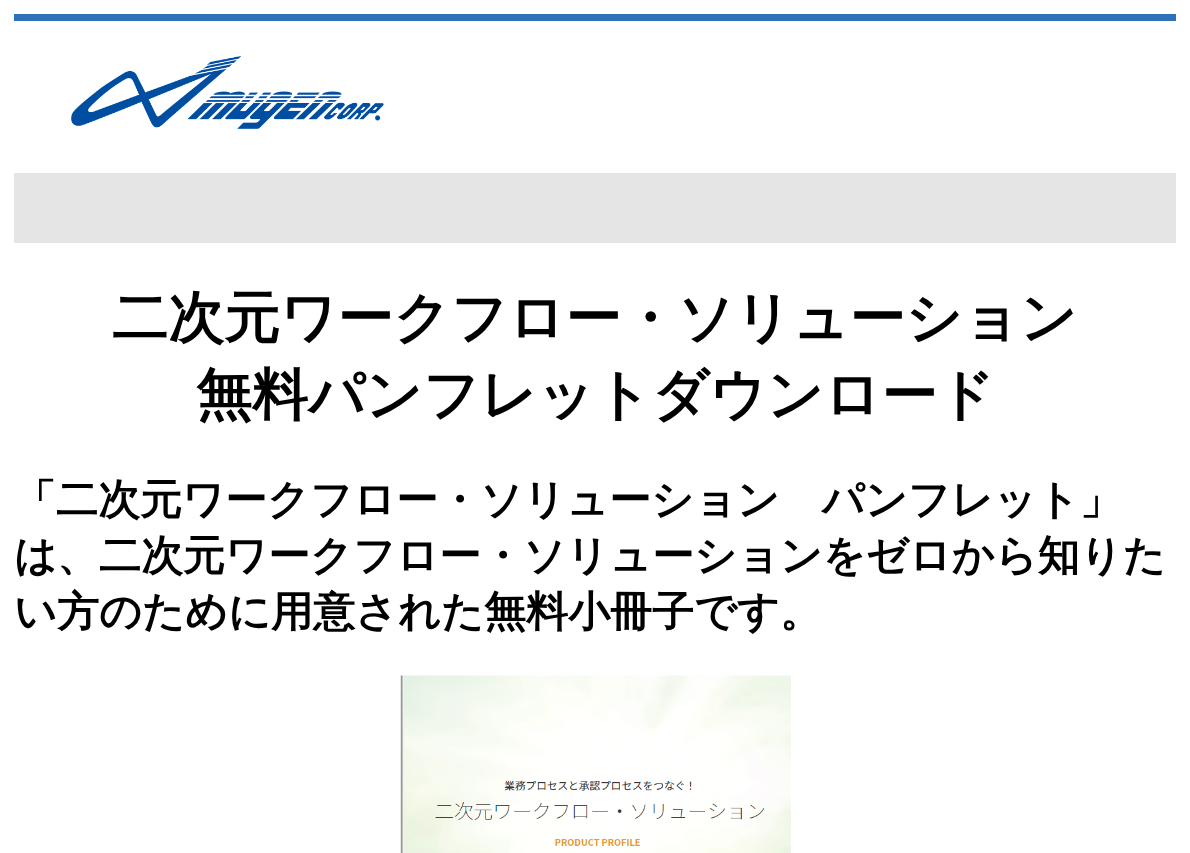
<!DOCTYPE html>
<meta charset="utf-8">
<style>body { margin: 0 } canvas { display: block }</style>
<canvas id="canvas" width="1190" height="853"></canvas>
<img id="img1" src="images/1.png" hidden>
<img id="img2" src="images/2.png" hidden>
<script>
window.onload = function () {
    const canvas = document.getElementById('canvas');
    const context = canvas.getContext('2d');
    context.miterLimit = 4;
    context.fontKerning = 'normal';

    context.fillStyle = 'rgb(255, 255, 255)';
    context.fillRect(0, 0, 1190, 853);
    context.fillStyle = 'rgb(45, 113, 186)';
    context.fillRect(14, 14, 1162, 7);
    context.fillStyle = 'rgb(229, 229, 229)';
    context.fillRect(14, 173, 1162, 70);
    context.drawImage(document.getElementById('img1'), 71, 56, 313, 73);
    context.drawImage(document.getElementById('img2'), 400, 675, 391, 178);
    context.font = 'bold 56px WenQuanYi Zen Hei';
    context.fillStyle = 'rgb(0, 0, 0)';
    context.fillText('二次元ワークフロー・ソリューション', 112, 337);
    context.fillText('無料パンフレットダウンロード', 196, 414);
    context.font = 'bold 42px WenQuanYi Zen Hei';
    context.fillText('「二次元ワークフロー・ソリューション　パンフレット」', 14, 514);
    context.fillText('は、二次元ワークフロー・ソリューションをゼロから知りた', 14, 570);
    context.fillText('い方のために用意された無料小冊子です。', 14, 626);
};
</script>
